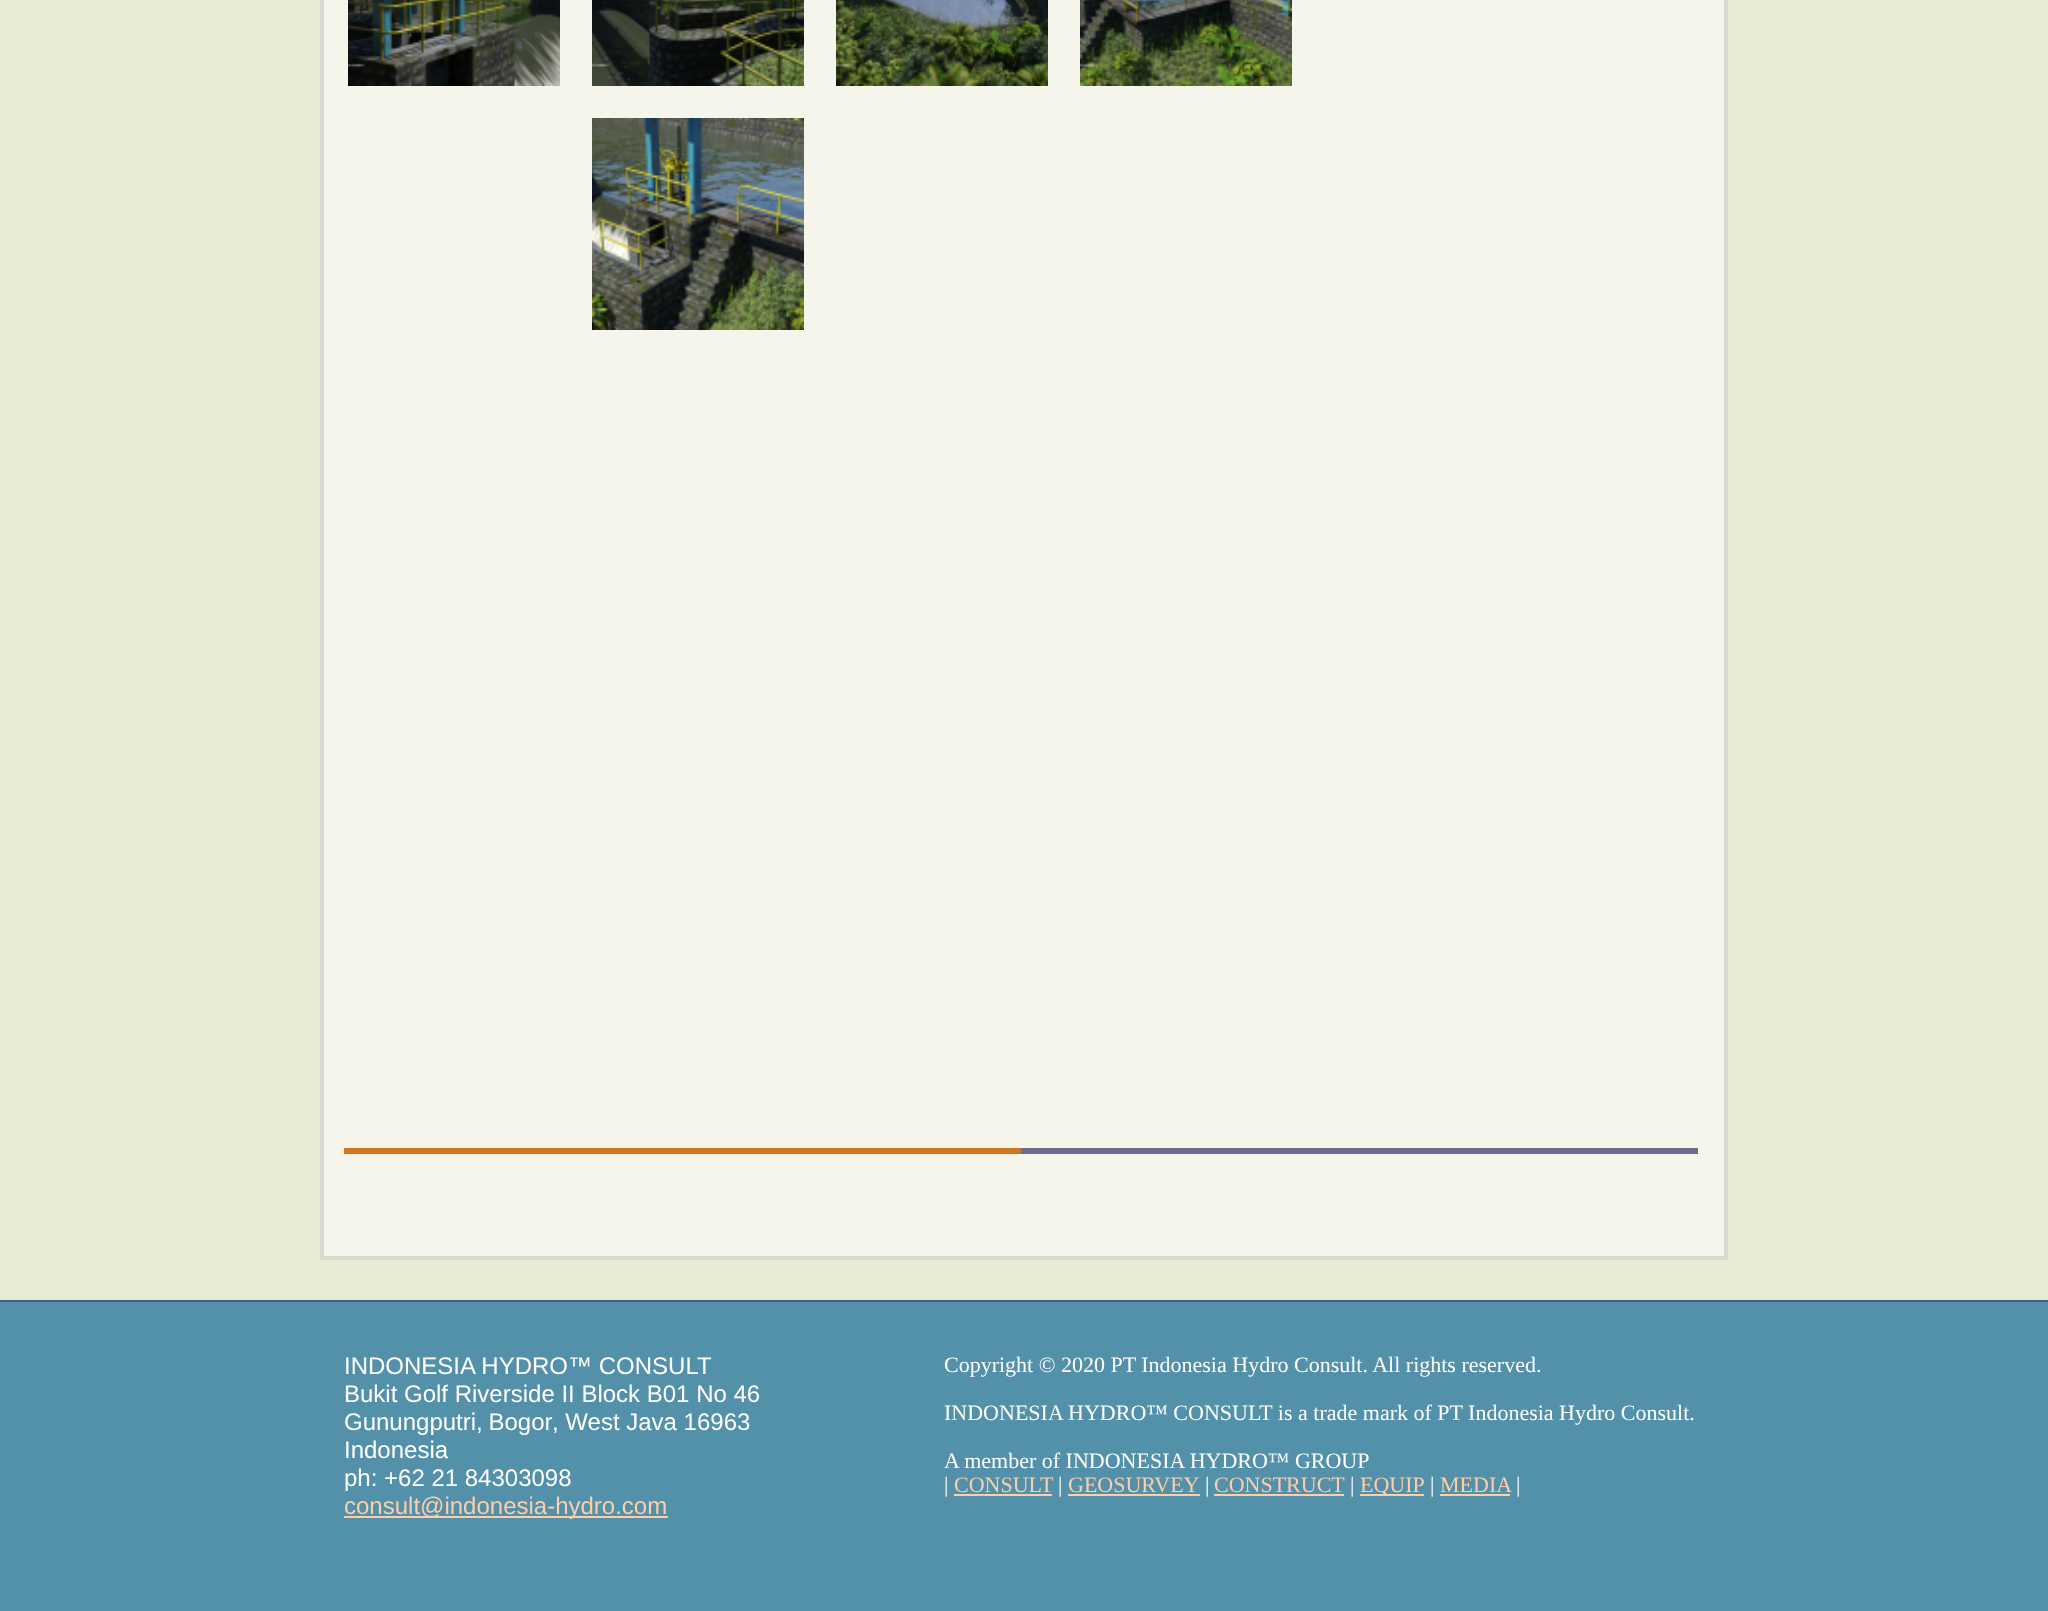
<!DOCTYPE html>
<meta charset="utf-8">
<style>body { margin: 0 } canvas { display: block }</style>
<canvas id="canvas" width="2048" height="1611"></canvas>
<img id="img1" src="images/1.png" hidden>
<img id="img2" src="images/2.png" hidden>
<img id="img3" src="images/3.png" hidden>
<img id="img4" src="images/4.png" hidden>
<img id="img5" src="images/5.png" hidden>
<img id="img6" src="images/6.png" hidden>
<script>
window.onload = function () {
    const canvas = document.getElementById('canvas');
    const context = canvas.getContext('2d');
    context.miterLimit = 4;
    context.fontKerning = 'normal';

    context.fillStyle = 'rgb(83, 145, 170)';
    context.fillRect(0, 0, 2048, 1611);
    context.fillStyle = 'rgb(233, 234, 211)';
    context.fillRect(0, 0, 2048, 1300);
    context.fillStyle = 'rgb(245, 245, 235)';
    context.beginPath();
    context.rect(322, -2, 1404, 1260);
    context.fill();
    context.strokeStyle = 'rgb(218, 217, 205)';
    context.lineWidth = 4;
    context.stroke();
    context.drawImage(document.getElementById('img1'), 344, 1148, 1354, 6);
    context.drawImage(document.getElementById('img2'), 348, 0, 212, 86);
    context.drawImage(document.getElementById('img3'), 592, 0, 212, 86);
    context.drawImage(document.getElementById('img4'), 836, 0, 212, 86);
    context.drawImage(document.getElementById('img5'), 1080, 0, 212, 86);
    context.drawImage(document.getElementById('img6'), 592, 118, 212, 212);
    context.fillStyle = 'rgb(55, 98, 143)';
    context.fillRect(0, 1300, 2048, 2);
    context.fillStyle = 'rgb(254, 206, 168)';
    context.fillRect(344, 1516, 324, 2);
    context.fillRect(954, 1494, 98, 2);
    context.fillRect(1068, 1494, 132, 2);
    context.fillRect(1214, 1494, 130, 2);
    context.fillRect(1360, 1494, 64, 2);
    context.fillRect(1440, 1494, 70, 2);
    context.font = '24px Liberation Sans';
    context.fillStyle = 'rgb(255, 255, 255)';
    context.fillText('INDONESIA HYDRO™ CONSULT', 344, 1374);
    context.fillText('Bukit Golf Riverside II Block B01 No 46', 344, 1402);
    context.wordSpacing = '-1px';
    context.fillText('Gunungputri, Bogor', 344, 1430);
    context.wordSpacing = '0px';
    context.fillText(', West Java 16963', 552, 1430);
    context.fillText('Indonesia', 344, 1458);
    context.fillText('ph: +62 21 84303098', 344, 1486);
    context.fillStyle = 'rgb(254, 206, 168)';
    context.fillText('consult@indonesia-hydro.com', 344, 1514);
    context.font = '22px Liberation Serif';
    context.fillStyle = 'rgb(255, 255, 255)';
    context.fillText('Copyright © 2020 PT Indonesia Hydro Consult. All rights reserved.', 944, 1372);
    context.fillText('INDONESIA HYDRO™ CONSULT is a trade mark of PT Indonesia Hydro Consult.', 944, 1420);
    context.fillText('A member of INDONESIA HYDRO™ GROUP', 944, 1468);
    context.fillText('|', 944, 1492);
    context.fillStyle = 'rgb(254, 206, 168)';
    context.fillText('CONSULT', 954, 1492);
    context.fillStyle = 'rgb(255, 255, 255)';
    context.fillText('|', 1058, 1492);
    context.fillStyle = 'rgb(254, 206, 168)';
    context.fillText('GEOSURVEY', 1068, 1492);
    context.fillStyle = 'rgb(255, 255, 255)';
    context.fillText('|', 1205, 1492);
    context.fillStyle = 'rgb(254, 206, 168)';
    context.fillText('CONSTRUCT', 1214, 1492);
    context.fillStyle = 'rgb(255, 255, 255)';
    context.fillText('|', 1350, 1492);
    context.fillStyle = 'rgb(254, 206, 168)';
    context.fillText('EQUIP', 1360, 1492);
    context.fillStyle = 'rgb(255, 255, 255)';
    context.fillText('|', 1430, 1492);
    context.fillStyle = 'rgb(254, 206, 168)';
    context.fillText('MEDIA', 1440, 1492);
    context.fillStyle = 'rgb(255, 255, 255)';
    context.fillText('|', 1516, 1492);
};
</script>
